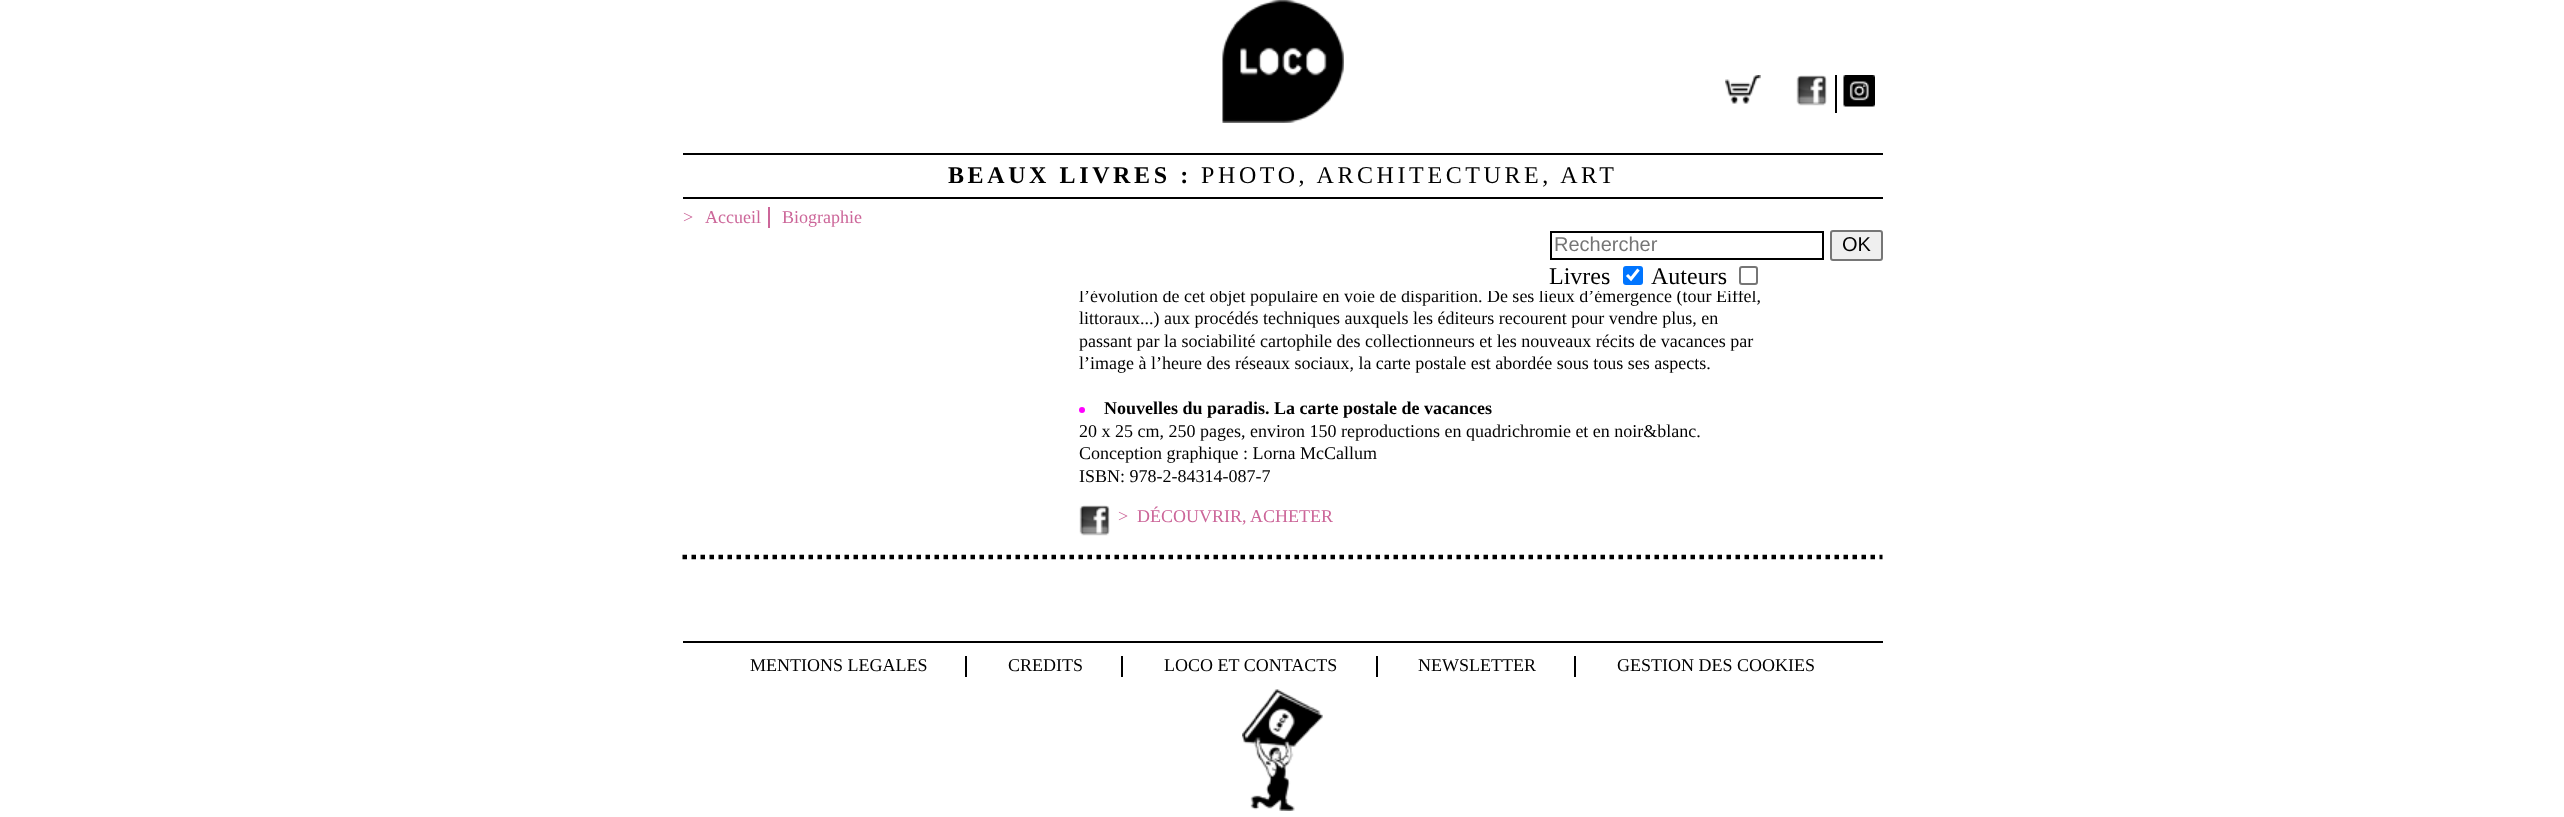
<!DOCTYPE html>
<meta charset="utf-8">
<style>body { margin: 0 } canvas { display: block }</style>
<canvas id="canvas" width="2564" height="817"></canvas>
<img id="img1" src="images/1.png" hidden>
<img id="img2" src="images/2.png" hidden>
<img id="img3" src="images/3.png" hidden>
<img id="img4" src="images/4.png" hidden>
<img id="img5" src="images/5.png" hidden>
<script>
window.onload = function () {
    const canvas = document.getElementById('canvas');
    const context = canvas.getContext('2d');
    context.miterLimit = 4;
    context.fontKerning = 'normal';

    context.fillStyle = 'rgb(255, 255, 255)';
    context.fillRect(0, 0, 2564, 817);
    context.drawImage(document.getElementById('img1'), 1222, 0, 122, 123);
    context.drawImage(document.getElementById('img2'), 1725, 75, 36, 29);
    context.fillStyle = 'rgb(0, 0, 0)';
    context.fillRect(1835, 75, 2, 38);
    context.drawImage(document.getElementById('img3'), 1796, 75, 31, 31);
    context.drawImage(document.getElementById('img4'), 1843, 75, 32, 32);
    context.fillRect(683, 153, 1200, 2);
    context.fillRect(683, 197, 1200, 2);
    context.fillStyle = 'rgb(204, 102, 153)';
    context.fillRect(768, 207, 2, 21);
    context.strokeStyle = 'rgb(0, 0, 0)';
    context.lineWidth = 2;
    context.strokeRect(1551, 232, 272, 27);
    context.fillStyle = 'rgb(239, 239, 239)';
    context.beginPath();
    context.roundRect(1831, 231, 51, 29, 2);
    context.fill();
    context.strokeStyle = 'rgb(118, 118, 118)';
    context.stroke();
    context.fillStyle = 'rgb(0, 117, 255)';
    context.beginPath();
    context.roundRect(1623, 266, 20, 19, 3);
    context.fill();
    context.beginPath();
    context.moveTo(1627, 275);
    context.lineTo(1631, 279);
    context.lineTo(1638.5, 269.5);
    context.strokeStyle = 'rgb(255, 255, 255)';
    context.lineWidth = 3.1;
    context.stroke();
    context.beginPath();
    context.roundRect(1740, 267, 17, 17, 2);
    context.strokeStyle = 'rgb(118, 118, 118)';
    context.lineWidth = 2;
    context.stroke();
    context.fillStyle = 'rgb(255, 0, 255)';
    context.beginPath();
    context.arc(1082, 410, 3, 0, 2 * Math.PI);
    context.fill();
    context.drawImage(document.getElementById('img3'), 1079, 505, 31, 31);
    context.beginPath();
    context.moveTo(682.5, 557);
    context.lineTo(1882.5, 557);
    context.strokeStyle = 'rgb(0, 0, 0)';
    context.lineWidth = 4.5;
    context.setLineDash([4.5, 4.5]);
    context.stroke();
    context.fillStyle = 'rgb(0, 0, 0)';
    context.fillRect(683, 641, 1200, 2);
    context.fillRect(965, 656, 2, 21);
    context.fillRect(1121, 656, 2, 21);
    context.fillRect(1376, 656, 2, 21);
    context.fillRect(1574, 656, 2, 21);
    context.drawImage(document.getElementById('img5'), 1242, 689, 81, 122);
    context.letterSpacing = '3.6px';
    context.font = 'bold 24px Liberation Serif';
    context.fillText('BEAUX LIVRES :', 948, 183);
    context.font = '24px Liberation Serif';
    context.fillText('PHOTO, ARCHITECTURE, ART', 1201, 183);
    context.letterSpacing = '0px';
    context.font = '18px Liberation Serif';
    context.fillStyle = 'rgb(204, 102, 153)';
    context.fillText('>', 683, 223);
    context.fillText('Accueil', 705, 223);
    context.fillText('Biographie', 782, 223);
    context.font = '20px Liberation Sans';
    context.fillStyle = 'rgb(117, 117, 117)';
    context.fillText('Rechercher', 1554, 251);
    context.fillStyle = 'rgb(0, 0, 0)';
    context.fillText('OK', 1842, 251);
    context.font = '24px Liberation Serif';
    context.fillText('Livres', 1549, 284);
    context.fillText('Auteurs', 1651, 284);
    context.font = '18px Liberation Serif';
    context.fillText('l’évolution de cet objet populaire en voie de disparition. De ses lieux d’émergence (tour Eiffel,', 1079, 302);
    context.fillStyle = 'rgb(255, 255, 255)';
    context.fillRect(1078, 289, 677, 2);
    context.fillStyle = 'rgb(0, 0, 0)';
    context.fillText('littoraux...) aux procédés techniques auxquels les éditeurs recourent pour vendre plus, en', 1079, 324);
    context.fillText('passant par la sociabilité cartophile des collectionneurs et les nouveaux récits de vacances par', 1079, 347);
    context.fillText('l’image à l’heure des réseaux sociaux, la carte postale est abordée sous tous ses aspects.', 1079, 369);
    context.font = 'bold 18px Liberation Serif';
    context.fillText('Nouvelles du paradis. La carte postale de vacances', 1104, 414);
    context.font = '18px Liberation Serif';
    context.fillText('20 x 25 cm, 250 pages, environ 150 reproductions en quadrichromie et en noir&blanc.', 1079, 437);
    context.fillText('Conception graphique : Lorna McCallum', 1079, 459);
    context.fillText('ISBN: 978-2-84314-087-7', 1079, 482);
    context.fillStyle = 'rgb(204, 102, 153)';
    context.fillText('>', 1118, 522);
    context.fillText('DÉCOUVRIR, ACHETER', 1137, 522);
    context.fillStyle = 'rgb(0, 0, 0)';
    context.fillText('MENTIONS LEGALES', 750, 671);
    context.fillText('CREDITS', 1008, 671);
    context.fillText('LOCO ET CONTACTS', 1164, 671);
    context.fillText('NEWSLETTER', 1418, 671);
    context.fillText('GESTION DES COOKIES', 1617, 671);
};
</script>
